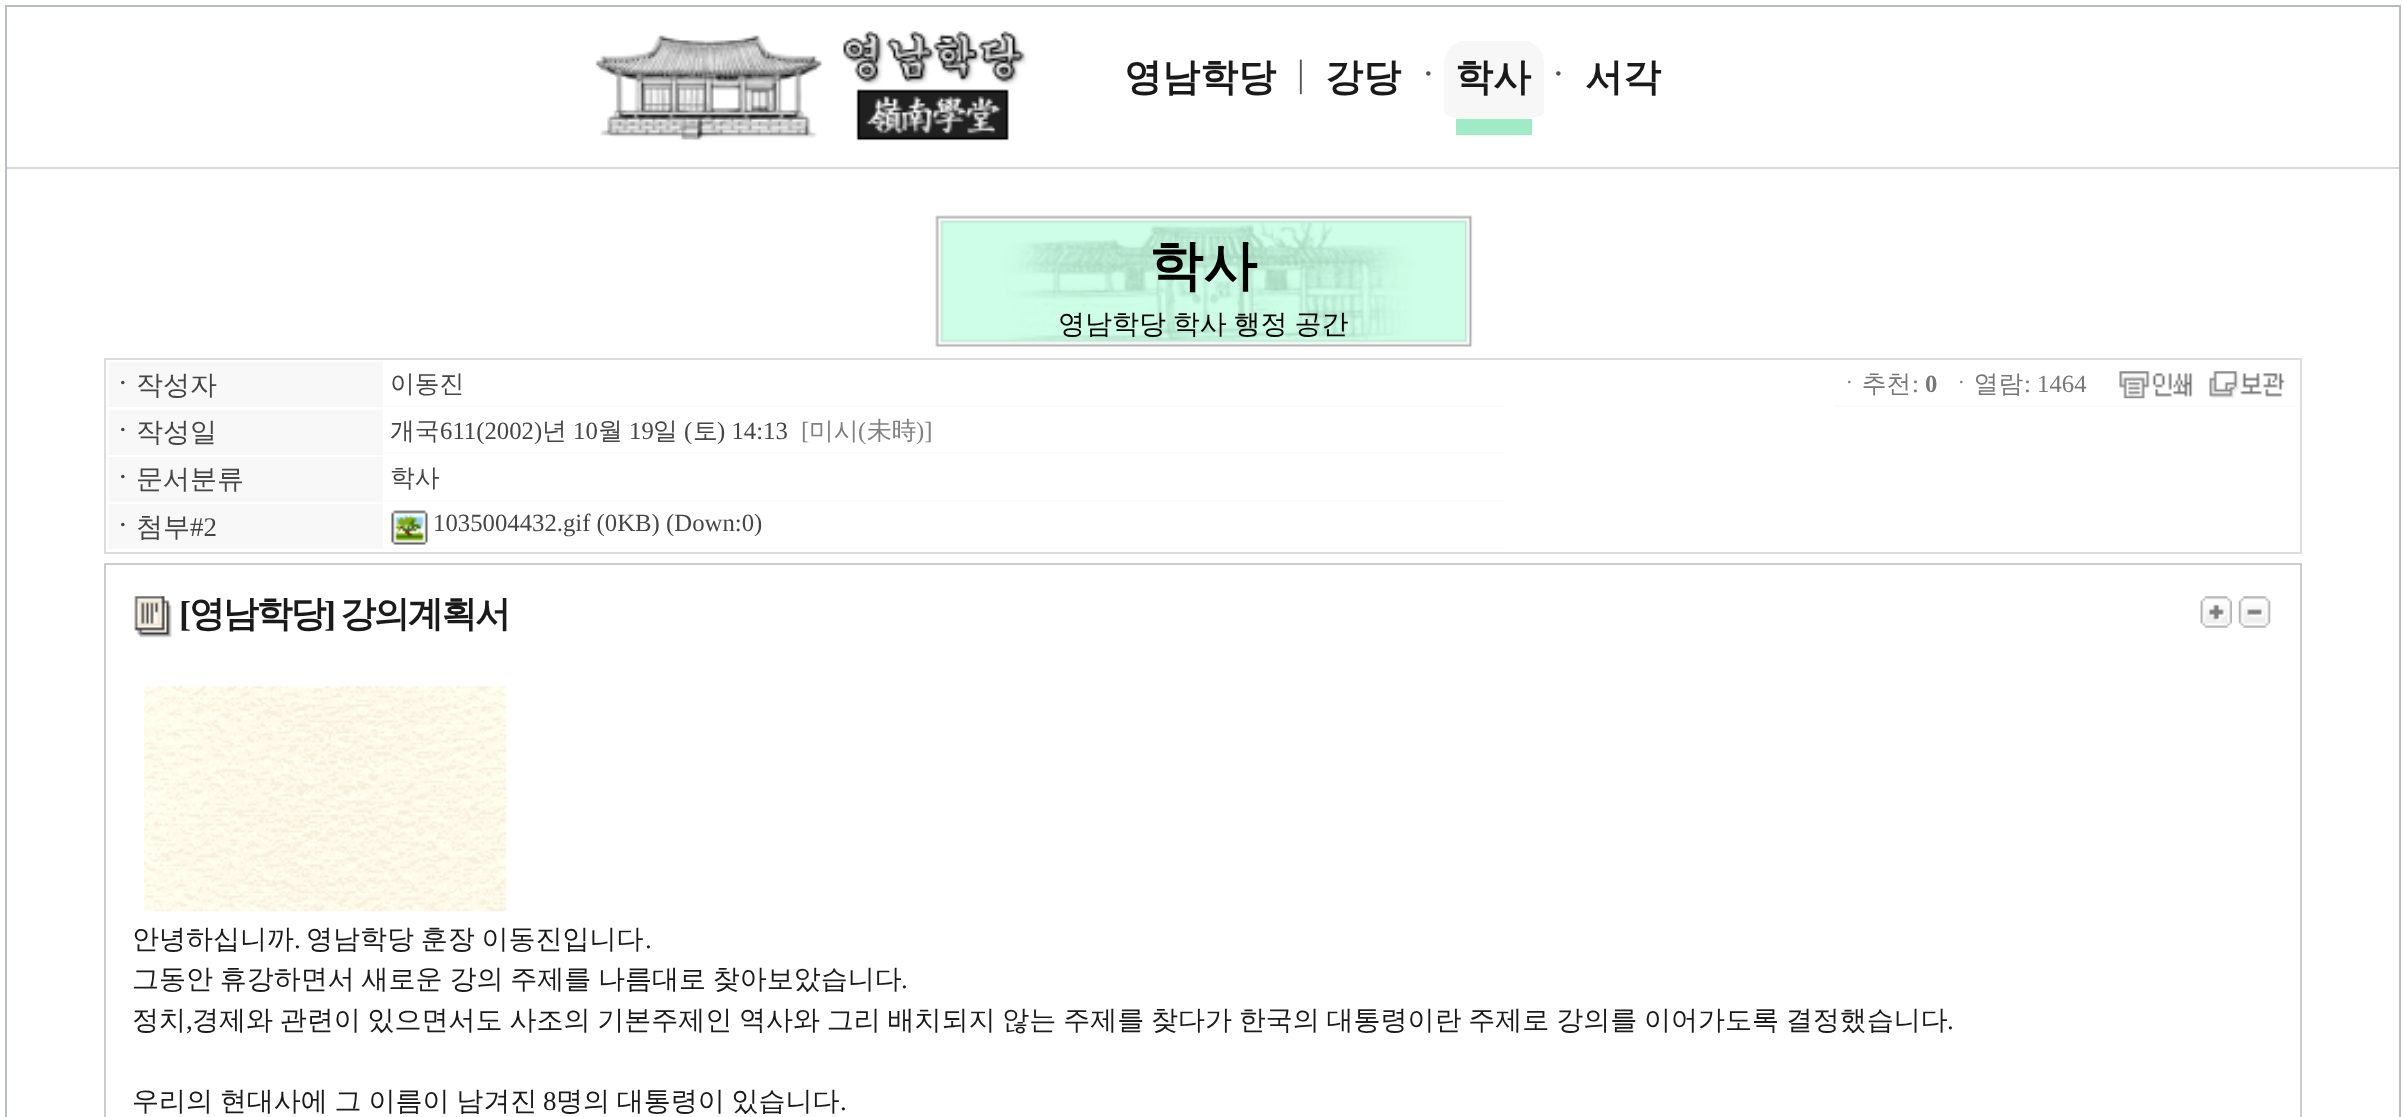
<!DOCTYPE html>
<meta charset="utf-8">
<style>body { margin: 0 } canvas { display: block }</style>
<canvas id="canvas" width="2404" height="1117"></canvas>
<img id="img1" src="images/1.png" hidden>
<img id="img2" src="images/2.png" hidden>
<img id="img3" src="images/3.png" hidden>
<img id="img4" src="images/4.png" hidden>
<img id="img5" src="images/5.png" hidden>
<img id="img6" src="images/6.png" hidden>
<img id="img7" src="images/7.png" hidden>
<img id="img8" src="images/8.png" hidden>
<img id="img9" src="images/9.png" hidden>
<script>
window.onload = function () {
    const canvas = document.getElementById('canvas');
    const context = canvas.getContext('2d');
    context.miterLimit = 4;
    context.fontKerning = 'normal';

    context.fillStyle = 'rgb(255, 255, 255)';
    context.fillRect(0, 0, 2404, 1117);
    context.strokeStyle = 'rgb(182, 189, 196)';
    context.lineWidth = 2;
    context.strokeRect(6, 6, 2394, 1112);
    context.drawImage(document.getElementById('img1'), 595, 31, 433, 110);
    context.save();
    context.beginPath();
    context.rect(1114, 41, 709, 94);
    context.clip();
    context.fillStyle = 'rgb(247, 247, 247)';
    context.beginPath();
    context.moveTo(1467, 40);
    context.lineTo(1521, 40);
    context.bezierCurveTo(1533, 40, 1544, 51, 1544, 63);
    context.lineTo(1544, 112);
    context.bezierCurveTo(1544, 116, 1533, 119, 1521, 119);
    context.lineTo(1467, 119);
    context.bezierCurveTo(1455, 119, 1444, 116, 1444, 112);
    context.lineTo(1444, 63);
    context.bezierCurveTo(1444, 51, 1455, 40, 1467, 40);
    context.closePath();
    context.fill();
    context.restore();
    context.fillStyle = 'rgb(158, 235, 197)';
    context.fillRect(1456, 119, 76, 16);
    context.fillStyle = 'rgb(215, 215, 215)';
    context.fillRect(7, 167, 2392, 2);
    context.drawImage(document.getElementById('img2'), 935, 215, 538, 133);
    context.strokeStyle = 'rgb(221, 221, 221)';
    context.strokeRect(105, 359, 2196, 194);
    context.fillStyle = 'rgb(248, 248, 248)';
    context.fillRect(108, 362, 275, 45);
    context.fillStyle = 'rgb(250, 250, 250)';
    context.fillRect(385, 405, 1120, 2);
    context.fillStyle = 'rgb(248, 248, 248)';
    context.fillRect(108, 410, 275, 45);
    context.fillStyle = 'rgb(250, 250, 250)';
    context.fillRect(385, 452, 1120, 2);
    context.fillStyle = 'rgb(248, 248, 248)';
    context.fillRect(108, 457, 275, 45);
    context.fillStyle = 'rgb(250, 250, 250)';
    context.fillRect(385, 500, 1120, 2);
    context.fillStyle = 'rgb(248, 248, 248)';
    context.fillRect(108, 504, 275, 45);
    context.fillStyle = 'rgb(250, 250, 250)';
    context.fillRect(385, 547, 1120, 2);
    context.drawImage(document.getElementById('img3'), 391, 510, 37, 35);
    context.drawImage(document.getElementById('img4'), 2119, 371, 74, 28);
    context.drawImage(document.getElementById('img5'), 2209, 371, 76, 28);
    context.fillRect(1834, 405, 463, 2);
    context.strokeStyle = 'rgb(204, 204, 204)';
    context.strokeRect(105, 564, 2196, 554);
    context.drawImage(document.getElementById('img6'), 134, 596, 38, 42);
    context.drawImage(document.getElementById('img7'), 2200, 596, 32, 32);
    context.drawImage(document.getElementById('img8'), 2238, 596, 33, 32);
    context.drawImage(document.getElementById('img9'), 144, 686, 363, 226);
    context.font = 'bold 38px WenQuanYi Zen Hei';
    context.fillStyle = 'rgb(26, 26, 26)';
    context.fillText('영남학당', 1124, 90);
    context.font = '38px Liberation Serif';
    context.fillStyle = 'rgb(85, 85, 85)';
    context.fillText('|', 1297, 86);
    context.font = 'bold 38px WenQuanYi Zen Hei';
    context.fillStyle = 'rgb(26, 26, 26)';
    context.fillText('강당', 1325, 90);
    context.font = '38px Liberation Serif';
    context.fillStyle = 'rgb(85, 85, 85)';
    context.fillText('·', 1422, 86);
    context.font = 'bold 38px WenQuanYi Zen Hei';
    context.fillStyle = 'rgb(26, 26, 26)';
    context.fillText('학사', 1455, 90);
    context.font = '38px Liberation Serif';
    context.fillStyle = 'rgb(85, 85, 85)';
    context.fillText('·', 1552, 86);
    context.font = 'bold 38px WenQuanYi Zen Hei';
    context.fillStyle = 'rgb(26, 26, 26)';
    context.fillText('서각', 1585, 90);
    context.font = 'bold 54px WenQuanYi Zen Hei';
    context.fillStyle = 'rgb(0, 0, 0)';
    context.fillText('학사', 1149, 284);
    context.wordSpacing = '-1.3px';
    context.font = '500 27px WenQuanYi Zen Hei';
    context.fillText('영남학당 학사 행정 공간', 1058, 333);
    context.wordSpacing = '0px';
    context.font = 'bold 27px WenQuanYi Zen Hei';
    context.fillStyle = 'rgb(69, 69, 69)';
    context.fillText('ㆍ', 109, 394);
    context.font = '500 27px WenQuanYi Zen Hei';
    context.fillText('작성자', 136, 394);
    context.font = '500 24.75px WenQuanYi Zen Hei';
    context.fillText('이동진', 390, 392);
    context.font = 'bold 27px WenQuanYi Zen Hei';
    context.fillText('ㆍ', 109, 441);
    context.font = '500 27px WenQuanYi Zen Hei';
    context.fillText('작성일', 136, 441);
    context.font = '500 24.75px WenQuanYi Zen Hei';
    context.fillText('개국', 390, 439);
    context.font = '24.75px Liberation Serif';
    context.fillText('611(2002)', 440, 439);
    context.font = '500 24.75px WenQuanYi Zen Hei';
    context.fillText('년', 542, 439);
    context.font = '24.75px Liberation Serif';
    context.fillText('10', 573, 439);
    context.font = '500 24.75px WenQuanYi Zen Hei';
    context.fillText('월', 598, 439);
    context.font = '24.75px Liberation Serif';
    context.fillText('19', 629, 439);
    context.font = '500 24.75px WenQuanYi Zen Hei';
    context.fillText('일', 653, 439);
    context.font = '24.75px Liberation Serif';
    context.fillText('(', 684, 439);
    context.font = '500 24.75px WenQuanYi Zen Hei';
    context.fillText('토', 693, 439);
    context.font = '24.75px Liberation Serif';
    context.fillText(') 14:13', 717, 439);
    context.fillStyle = 'rgb(128, 128, 128)';
    context.fillText('[', 801, 439);
    context.font = '500 24.75px WenQuanYi Zen Hei';
    context.fillText('미시', 809, 439);
    context.font = '24.75px Liberation Serif';
    context.fillText('(', 858, 439);
    context.font = '500 24.75px WenQuanYi Zen Hei';
    context.fillText('未時', 867, 439);
    context.font = '24.75px Liberation Serif';
    context.fillText(')]', 916, 439);
    context.font = 'bold 27px WenQuanYi Zen Hei';
    context.fillStyle = 'rgb(69, 69, 69)';
    context.fillText('ㆍ', 109, 488);
    context.font = '500 27px WenQuanYi Zen Hei';
    context.fillText('문서분류', 136, 488);
    context.font = '500 24.75px WenQuanYi Zen Hei';
    context.fillText('학사', 390, 486);
    context.font = 'bold 27px WenQuanYi Zen Hei';
    context.fillText('ㆍ', 109, 536);
    context.font = '500 27px WenQuanYi Zen Hei';
    context.fillText('첨부', 136, 536);
    context.font = '27px Liberation Serif';
    context.fillText('#2', 190, 536);
    context.font = '24.75px Liberation Serif';
    context.fillText('1035004432.gif (0KB) (Down:0)', 433, 531);
    context.font = '500 24.75px WenQuanYi Zen Hei';
    context.fillStyle = 'rgb(119, 119, 119)';
    context.fillText('ㆍ추천', 1837, 392);
    context.font = '24.75px Liberation Serif';
    context.fillText(':', 1912, 392);
    context.font = 'bold 24.75px Liberation Serif';
    context.fillText('0', 1925, 392);
    context.font = '500 24.75px WenQuanYi Zen Hei';
    context.fillText('ㆍ열람', 1949, 392);
    context.font = '24.75px Liberation Serif';
    context.fillText(': 1464', 2024, 392);
    context.letterSpacing = '-2.25px';
    context.font = 'bold 36px Liberation Serif';
    context.fillStyle = 'rgb(26, 26, 26)';
    context.fillText('[', 179, 626);
    context.font = 'bold 36px WenQuanYi Zen Hei';
    context.fillText('영남학당', 189, 626);
    context.font = 'bold 36px Liberation Serif';
    context.fillText(']', 324, 626);
    context.font = 'bold 36px WenQuanYi Zen Hei';
    context.fillText('강의계획서', 340, 626);
    context.letterSpacing = '0px';
    context.font = '500 27px WenQuanYi Zen Hei';
    context.fillText('안녕하십니까', 132, 948);
    context.font = '27px Liberation Serif';
    context.fillText('.', 294, 948);
    context.wordSpacing = '-1.3px';
    context.font = '500 27px WenQuanYi Zen Hei';
    context.fillText('영남학당 훈장 이동진입니다', 306, 948);
    context.wordSpacing = '0px';
    context.font = '27px Liberation Serif';
    context.fillText('.', 645, 948);
    context.wordSpacing = '-1.3px';
    context.font = '500 27px WenQuanYi Zen Hei';
    context.fillText('그동안 휴강하면서 새로운 강의 주제를 나름대로 찾아보았습니다', 132, 988);
    context.wordSpacing = '0px';
    context.font = '27px Liberation Serif';
    context.fillText('.', 901, 988);
    context.font = '500 27px WenQuanYi Zen Hei';
    context.fillText('정치', 132, 1029);
    context.font = '27px Liberation Serif';
    context.fillText(',', 186, 1029);
    context.wordSpacing = '-1.3px';
    context.font = '500 27px WenQuanYi Zen Hei';
    context.fillText('경제와 관련이 있으면서도 사조의 기본주제인 역사와 그리 배치되지 않는 주제를 찾다가 한국의 대통령이란 주제로 강의를 이어가도록 결정했습니다', 192, 1029);
    context.wordSpacing = '0px';
    context.font = '27px Liberation Serif';
    context.fillText('.', 1947, 1029);
    context.wordSpacing = '-1.3px';
    context.font = '500 27px WenQuanYi Zen Hei';
    context.fillText('우리의 현대사에 그 이름이 남겨진', 132, 1110);
    context.wordSpacing = '0px';
    context.font = '27px Liberation Serif';
    context.fillText('8', 543, 1110);
    context.wordSpacing = '-1.3px';
    context.font = '500 27px WenQuanYi Zen Hei';
    context.fillText('명의 대통령이 있습니다', 556, 1110);
    context.wordSpacing = '0px';
    context.font = '27px Liberation Serif';
    context.fillText('.', 840, 1110);
};
</script>
